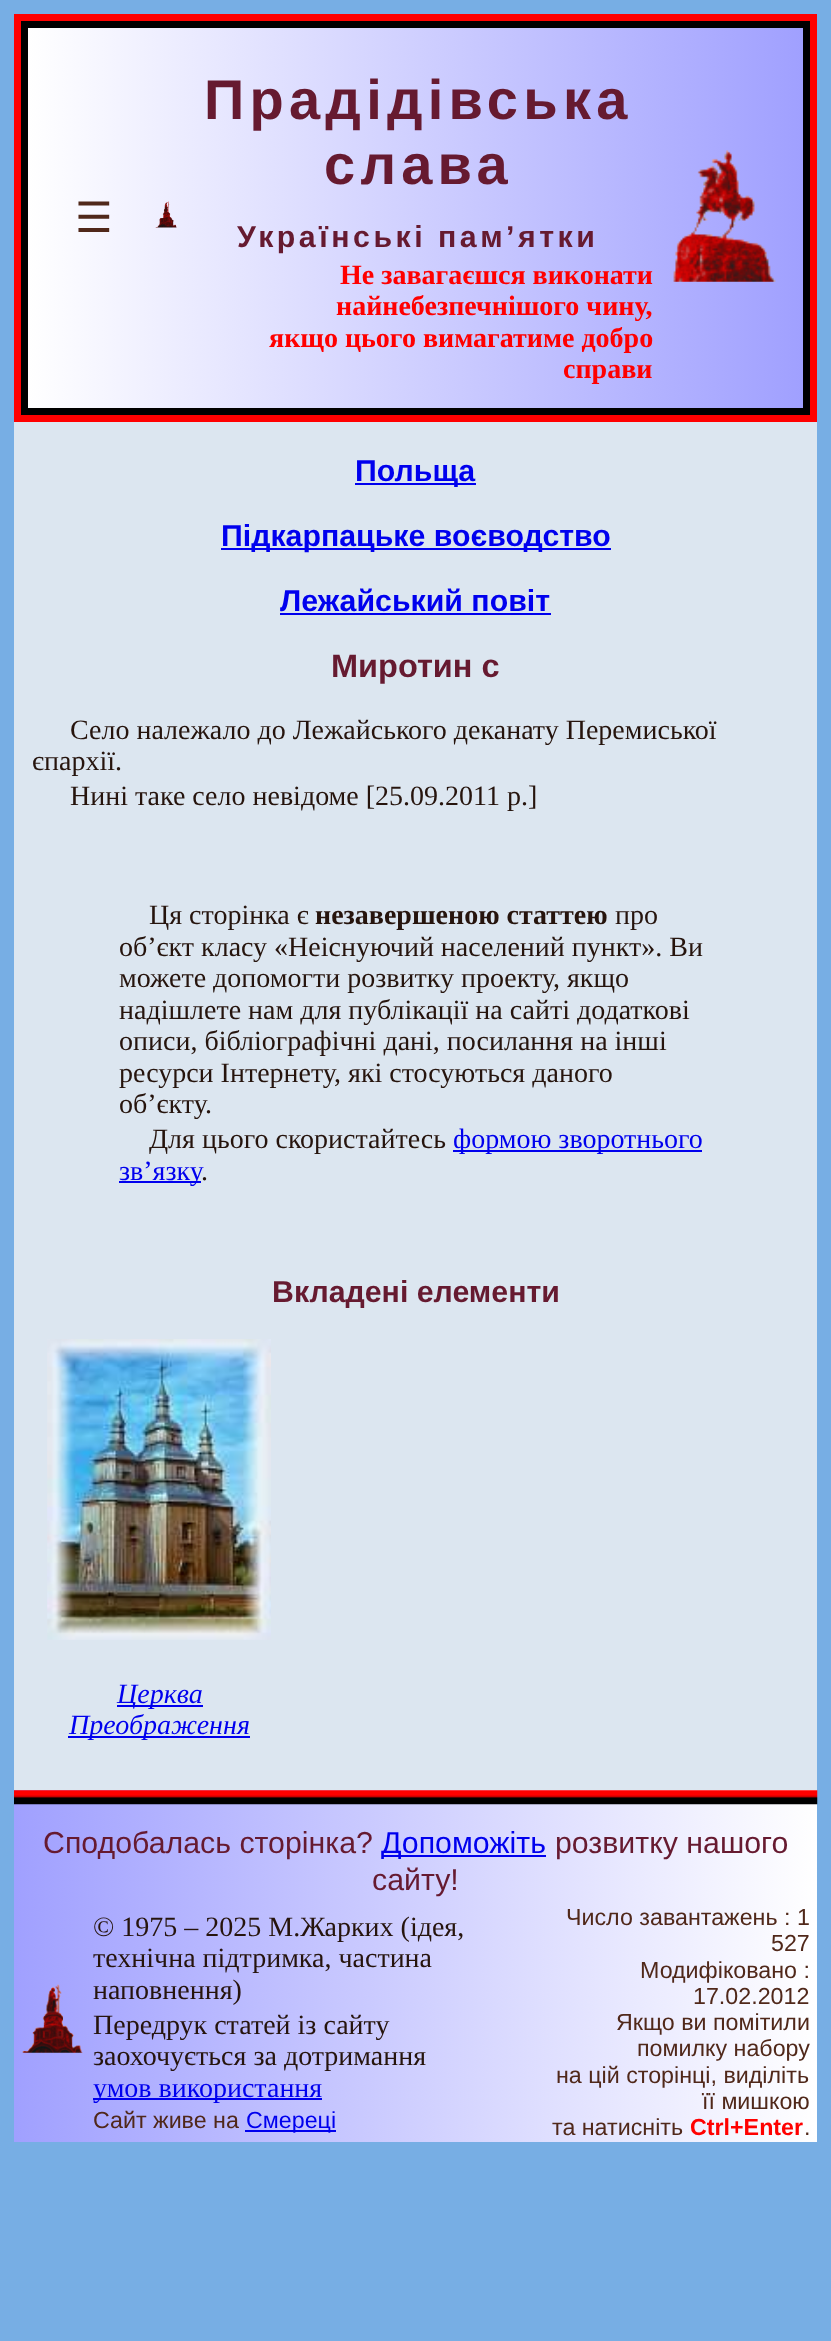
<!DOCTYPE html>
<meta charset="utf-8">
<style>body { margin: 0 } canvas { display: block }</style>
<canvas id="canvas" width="831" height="2341"></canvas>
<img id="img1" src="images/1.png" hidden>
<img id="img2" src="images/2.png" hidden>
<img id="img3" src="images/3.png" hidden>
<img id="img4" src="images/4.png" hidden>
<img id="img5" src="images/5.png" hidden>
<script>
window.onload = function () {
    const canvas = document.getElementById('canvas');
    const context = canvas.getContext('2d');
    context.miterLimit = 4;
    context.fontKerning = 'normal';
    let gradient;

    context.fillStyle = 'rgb(119, 174, 228)';
    context.fillRect(0, 0, 831, 2341);
    context.fillStyle = 'rgb(255, 0, 0)';
    context.fillRect(14, 14, 803, 408);
    gradient = context.createLinearGradient(28, 218, 803, 218);
    gradient.addColorStop(0, 'rgb(255, 255, 255)');
    gradient.addColorStop(1, 'rgb(160, 160, 255)');
    context.fillStyle = gradient;
    context.fillRect(28, 28, 775, 380);
    context.strokeStyle = 'rgb(0, 0, 0)';
    context.lineWidth = 7;
    context.strokeRect(24.5, 24.5, 782, 387);
    context.drawImage(document.getElementById('img1'), 155, 201, 22, 27);
    context.drawImage(document.getElementById('img2'), 673, 150, 103, 132);
    context.fillStyle = 'rgb(220, 230, 240)';
    context.fillRect(14, 422, 803, 1368);
    context.fillStyle = 'rgb(0, 0, 238)';
    context.fillRect(355, 483, 121, 2);
    context.fillRect(221, 548, 390, 2);
    context.fillRect(280, 613, 271, 2);
    context.fillRect(453, 1150, 249, 2);
    context.fillRect(119, 1181, 82, 2);
    context.drawImage(document.getElementById('img3'), 47, 1339, 224, 301);
    context.fillRect(117, 1705, 86, 2);
    context.fillRect(68, 1736, 182, 2);
    gradient = context.createLinearGradient(14, 1966, 817, 1966);
    gradient.addColorStop(0, 'rgb(160, 160, 255)');
    gradient.addColorStop(1, 'rgb(255, 255, 255)');
    context.fillStyle = gradient;
    context.fillRect(14, 1790, 803, 352);
    context.drawImage(document.getElementById('img4'), 14, 1790, 804, 15);
    context.fillStyle = 'rgb(0, 0, 238)';
    context.fillRect(382, 1855, 164, 2);
    context.drawImage(document.getElementById('img5'), 22, 1984, 61, 69);
    context.fillRect(93, 2098, 229, 2);
    context.fillRect(245, 2130, 91, 2);
    context.font = '42px DejaVu Sans';
    context.fillStyle = 'rgb(80, 40, 26)';
    context.fillText('☰', 75, 232);
    context.letterSpacing = '5.25px';
    context.font = 'bold 56px Liberation Sans';
    context.fillStyle = 'rgb(102, 26, 48)';
    context.fillText('Прадідівська', 204, 119);
    context.fillText('слава', 324, 184);
    context.letterSpacing = '3.5px';
    context.font = 'bold 30.3px Liberation Sans';
    context.fillText('Українські пам’ятки', 237, 247);
    context.letterSpacing = '0px';
    context.font = 'bold 28px Liberation Serif';
    context.fillStyle = 'rgb(255, 0, 0)';
    context.fillText('Не завагаєшся виконати', 340, 284);
    context.fillText('найнебезпечнішого чину,', 336, 315);
    context.fillText('якщо цього вимагатиме добро', 269, 347);
    context.fillText('справи', 563, 378);
    context.font = 'bold 30.3px Liberation Sans';
    context.fillStyle = 'rgb(0, 0, 238)';
    context.fillText('Польща', 355, 481);
    context.fillText('Підкарпацьке воєводство', 221, 546);
    context.fillText('Лежайський повіт', 280, 611);
    context.font = 'bold 32.5px Liberation Sans';
    context.fillStyle = 'rgb(102, 26, 48)';
    context.fillText('Миротин с', 331, 677);
    context.font = '28px Liberation Serif';
    context.fillStyle = 'rgb(38, 20, 13)';
    context.fillText('Село належало до Лежайського деканату Перемиської', 70, 739);
    context.fillText('єпархії.', 32, 770);
    context.fillText('Нині таке село невідоме [25.09.2011 р.]', 70, 805);
    context.fillText('Ця сторінка є', 149, 924);
    context.font = 'bold 28px Liberation Serif';
    context.fillText('незавершеною статтею', 315, 924);
    context.font = '28px Liberation Serif';
    context.fillText('про', 615, 924);
    context.fillText('об’єкт класу «Неіснуючий населений пункт». Ви', 119, 956);
    context.fillText('можете допомогти розвитку проекту, якщо', 119, 987);
    context.fillText('надішлете нам для публікації на сайті додаткові', 119, 1019);
    context.fillText('описи, бібліографічні дані, посилання на інші', 119, 1050);
    context.fillText('ресурси Інтернету, які стосуються даного', 119, 1082);
    context.fillText('об’єкту.', 119, 1113);
    context.fillText('Для цього скористайтесь', 149, 1148);
    context.fillStyle = 'rgb(0, 0, 238)';
    context.fillText('формою зворотнього', 453, 1148);
    context.fillText('зв’язку', 119, 1180);
    context.fillStyle = 'rgb(38, 20, 13)';
    context.fillText('.', 201, 1180);
    context.font = 'bold 30.3px Liberation Sans';
    context.fillStyle = 'rgb(102, 26, 48)';
    context.fillText('Вкладені елементи', 272, 1302);
    context.font = 'italic 28px Liberation Serif';
    context.fillStyle = 'rgb(0, 0, 238)';
    context.fillText('Церква', 117, 1703);
    context.fillText('Преображення', 69, 1734);
    context.font = '30.3px Liberation Sans';
    context.fillStyle = 'rgb(102, 26, 48)';
    context.fillText('Сподобалась сторінка?', 43, 1853);
    context.fillStyle = 'rgb(0, 0, 238)';
    context.fillText('Допоможіть', 381, 1853);
    context.fillStyle = 'rgb(102, 26, 48)';
    context.fillText('розвитку нашого', 555, 1853);
    context.fillText('сайту!', 372, 1890);
    context.font = '28px Liberation Serif';
    context.fillStyle = 'rgb(38, 20, 13)';
    context.fillText('© 1975 – 2025 М.Жарких (ідея,', 93, 1936);
    context.fillText('технічна підтримка, частина', 93, 1967);
    context.fillText('наповнення)', 93, 1999);
    context.fillText('Передрук статей із сайту', 93, 2034);
    context.fillText('заохочується за дотримання', 93, 2065);
    context.fillStyle = 'rgb(0, 0, 238)';
    context.fillText('умов використання', 93, 2097);
    context.font = '23.25px Liberation Sans';
    context.fillStyle = 'rgb(80, 40, 26)';
    context.fillText('Сайт живе на', 93, 2128);
    context.fillStyle = 'rgb(0, 0, 238)';
    context.fillText('Смереці', 246, 2128);
    context.fillStyle = 'rgb(80, 40, 26)';
    context.fillText('Число завантажень : 1', 566, 1925);
    context.fillText('527', 771, 1951);
    context.fillText('Модифіковано :', 640, 1978);
    context.fillText('17.02.2012', 693, 2004);
    context.fillText('Якщо ви помітили', 616, 2030);
    context.fillText('помилку набору', 637, 2056);
    context.fillText('на цiй сторiнцi, видiлiть', 556, 2083);
    context.fillText('її мишкою', 702, 2109);
    context.fillText('та натисніть', 552, 2135);
    context.font = 'bold 23.25px Liberation Sans';
    context.fillStyle = 'rgb(255, 0, 0)';
    context.fillText('Ctrl+Enter', 690, 2135);
    context.font = '23.25px Liberation Sans';
    context.fillStyle = 'rgb(80, 40, 26)';
    context.fillText('.', 804, 2135);
};
</script>
